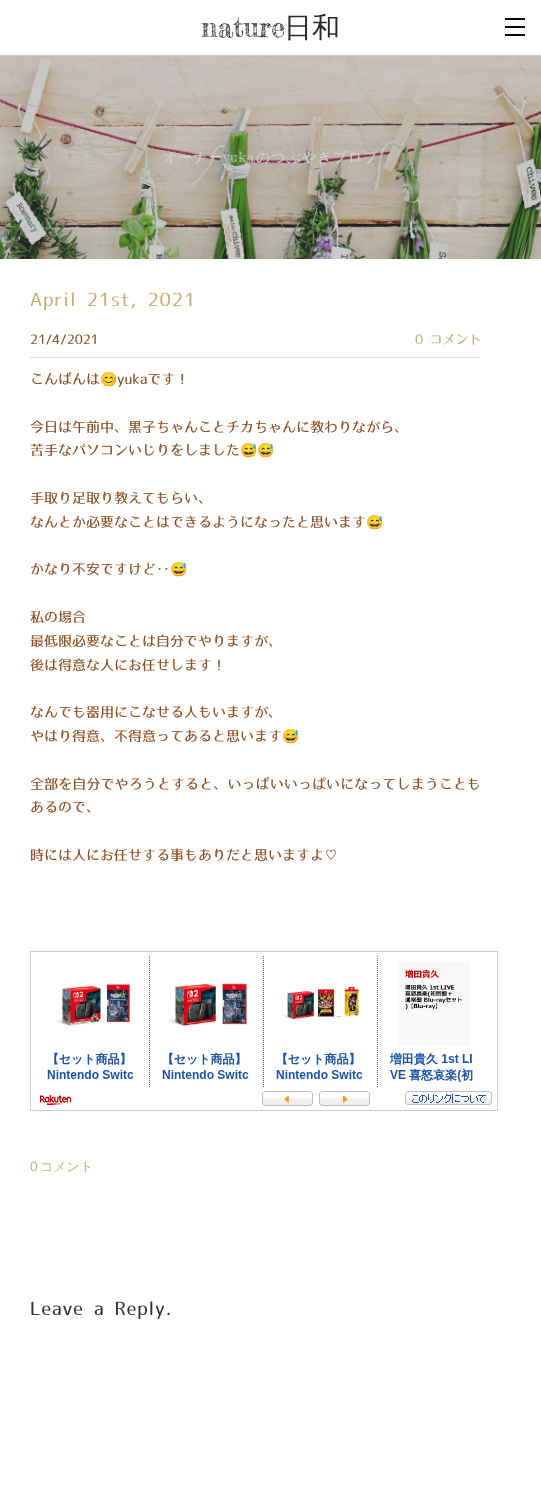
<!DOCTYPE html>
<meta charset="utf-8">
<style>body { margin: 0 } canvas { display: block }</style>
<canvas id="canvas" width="541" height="1508"></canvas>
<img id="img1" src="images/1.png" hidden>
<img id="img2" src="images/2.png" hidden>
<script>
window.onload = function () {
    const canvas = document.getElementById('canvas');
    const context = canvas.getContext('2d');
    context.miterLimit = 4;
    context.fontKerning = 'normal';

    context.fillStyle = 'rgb(255, 255, 255)';
    context.fillRect(0, 0, 541, 1508);
    context.fillStyle = 'rgb(204, 204, 204)';
    context.fillRect(0, 55, 541, 1);
    context.fillStyle = 'rgb(0, 0, 0)';
    context.fillRect(505, 26, 20, 2);
    context.fillRect(505, 18, 20, 2);
    context.fillRect(505, 34, 20, 2);
    context.drawImage(document.getElementById('img1'), 0, 56, 541, 203);
    context.fillStyle = 'rgb(221, 221, 221)';
    context.fillRect(30, 357, 451, 1);
    context.drawImage(document.getElementById('img2'), 30, 951, 468, 160);
    context.font = '28px Fredericka the Great';
    context.fillStyle = 'rgb(42, 42, 42)';
    context.fillText('nature', 201, 37);
    context.font = '500 28px WenQuanYi Zen Hei';
    context.fillText('日和', 284, 37);
    context.letterSpacing = '1px';
    context.font = '500 14px WenQuanYi Zen Hei';
    context.fillStyle = 'rgb(213, 213, 213)';
    context.fillText('オーナー', 163, 162);
    context.font = '14px Fredericka the Great';
    context.fillText('yuka', 223, 162);
    context.font = '500 14px WenQuanYi Zen Hei';
    context.fillText('のつぶやきブロブ', 256, 162);
    context.font = '18.25px "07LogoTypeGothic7"';
    context.fillStyle = 'rgb(200, 174, 121)';
    context.fillText('April 21st, 2021', 30, 306);
    context.letterSpacing = '0px';
    context.font = '13px "07LogoTypeGothic7"';
    context.fillStyle = 'rgb(141, 80, 36)';
    context.fillText('21/4/2021', 30, 344);
    context.fillStyle = 'rgb(200, 174, 121)';
    context.fillText('0 コメント', 415, 344);
    context.font = '14px "07LogoTypeGothic7"';
    context.fillStyle = 'rgb(141, 80, 36)';
    context.fillText('こんばんは', 30, 384);
    context.font = '14px Noto Color Emoji';
    context.fillText('😊', 100, 384);
    context.font = '14px "07LogoTypeGothic7"';
    context.fillText('yukaです！', 117, 384);
    context.fillText('今日は午前中、黒子ちゃんことチカちゃんに教わりながら、', 30, 432);
    context.fillText('苦手なパソコンいじりをしました', 30, 455);
    context.font = '14px Noto Color Emoji';
    context.fillText('😅😅', 240, 455);
    context.font = '14px "07LogoTypeGothic7"';
    context.fillText('手取り足取り教えてもらい、', 30, 503);
    context.fillText('なんとか必要なことはできるようになったと思います', 30, 527);
    context.font = '14px Noto Color Emoji';
    context.fillText('😅', 366, 527);
    context.font = '14px "07LogoTypeGothic7"';
    context.fillText('かなり不安ですけど‥', 30, 574);
    context.font = '14px Noto Color Emoji';
    context.fillText('😅', 170, 574);
    context.font = '14px "07LogoTypeGothic7"';
    context.fillText('私の場合', 30, 622);
    context.fillText('最低限必要なことは自分でやりますが、', 30, 646);
    context.fillText('後は得意な人にお任せします！', 30, 670);
    context.fillText('なんでも器用にこなせる人もいますが、', 30, 717);
    context.fillText('やはり得意、不得意ってあると思います', 30, 741);
    context.font = '14px Noto Color Emoji';
    context.fillText('😅', 282, 741);
    context.letterSpacing = '0.1px';
    context.font = '14px "07LogoTypeGothic7"';
    context.fillText('全部を自分でやろうとすると、いっぱいいっぱいになってしまうことも', 30, 789);
    context.letterSpacing = '0px';
    context.fillText('あるので、', 30, 812);
    context.fillText('時には人にお任せする事もありだと思いますよ♡', 30, 860);
    context.font = '13px Lato';
    context.fillStyle = 'rgb(200, 174, 121)';
    context.fillText('0', 30, 1171);
    context.font = '500 13px WenQuanYi Zen Hei';
    context.fillText('コメント', 40, 1171);
    context.letterSpacing = '1px';
    context.font = '18.25px "07LogoTypeGothic7"';
    context.fillStyle = 'rgb(51, 51, 51)';
    context.fillText('Leave a Reply.', 30, 1315);
};
</script>
